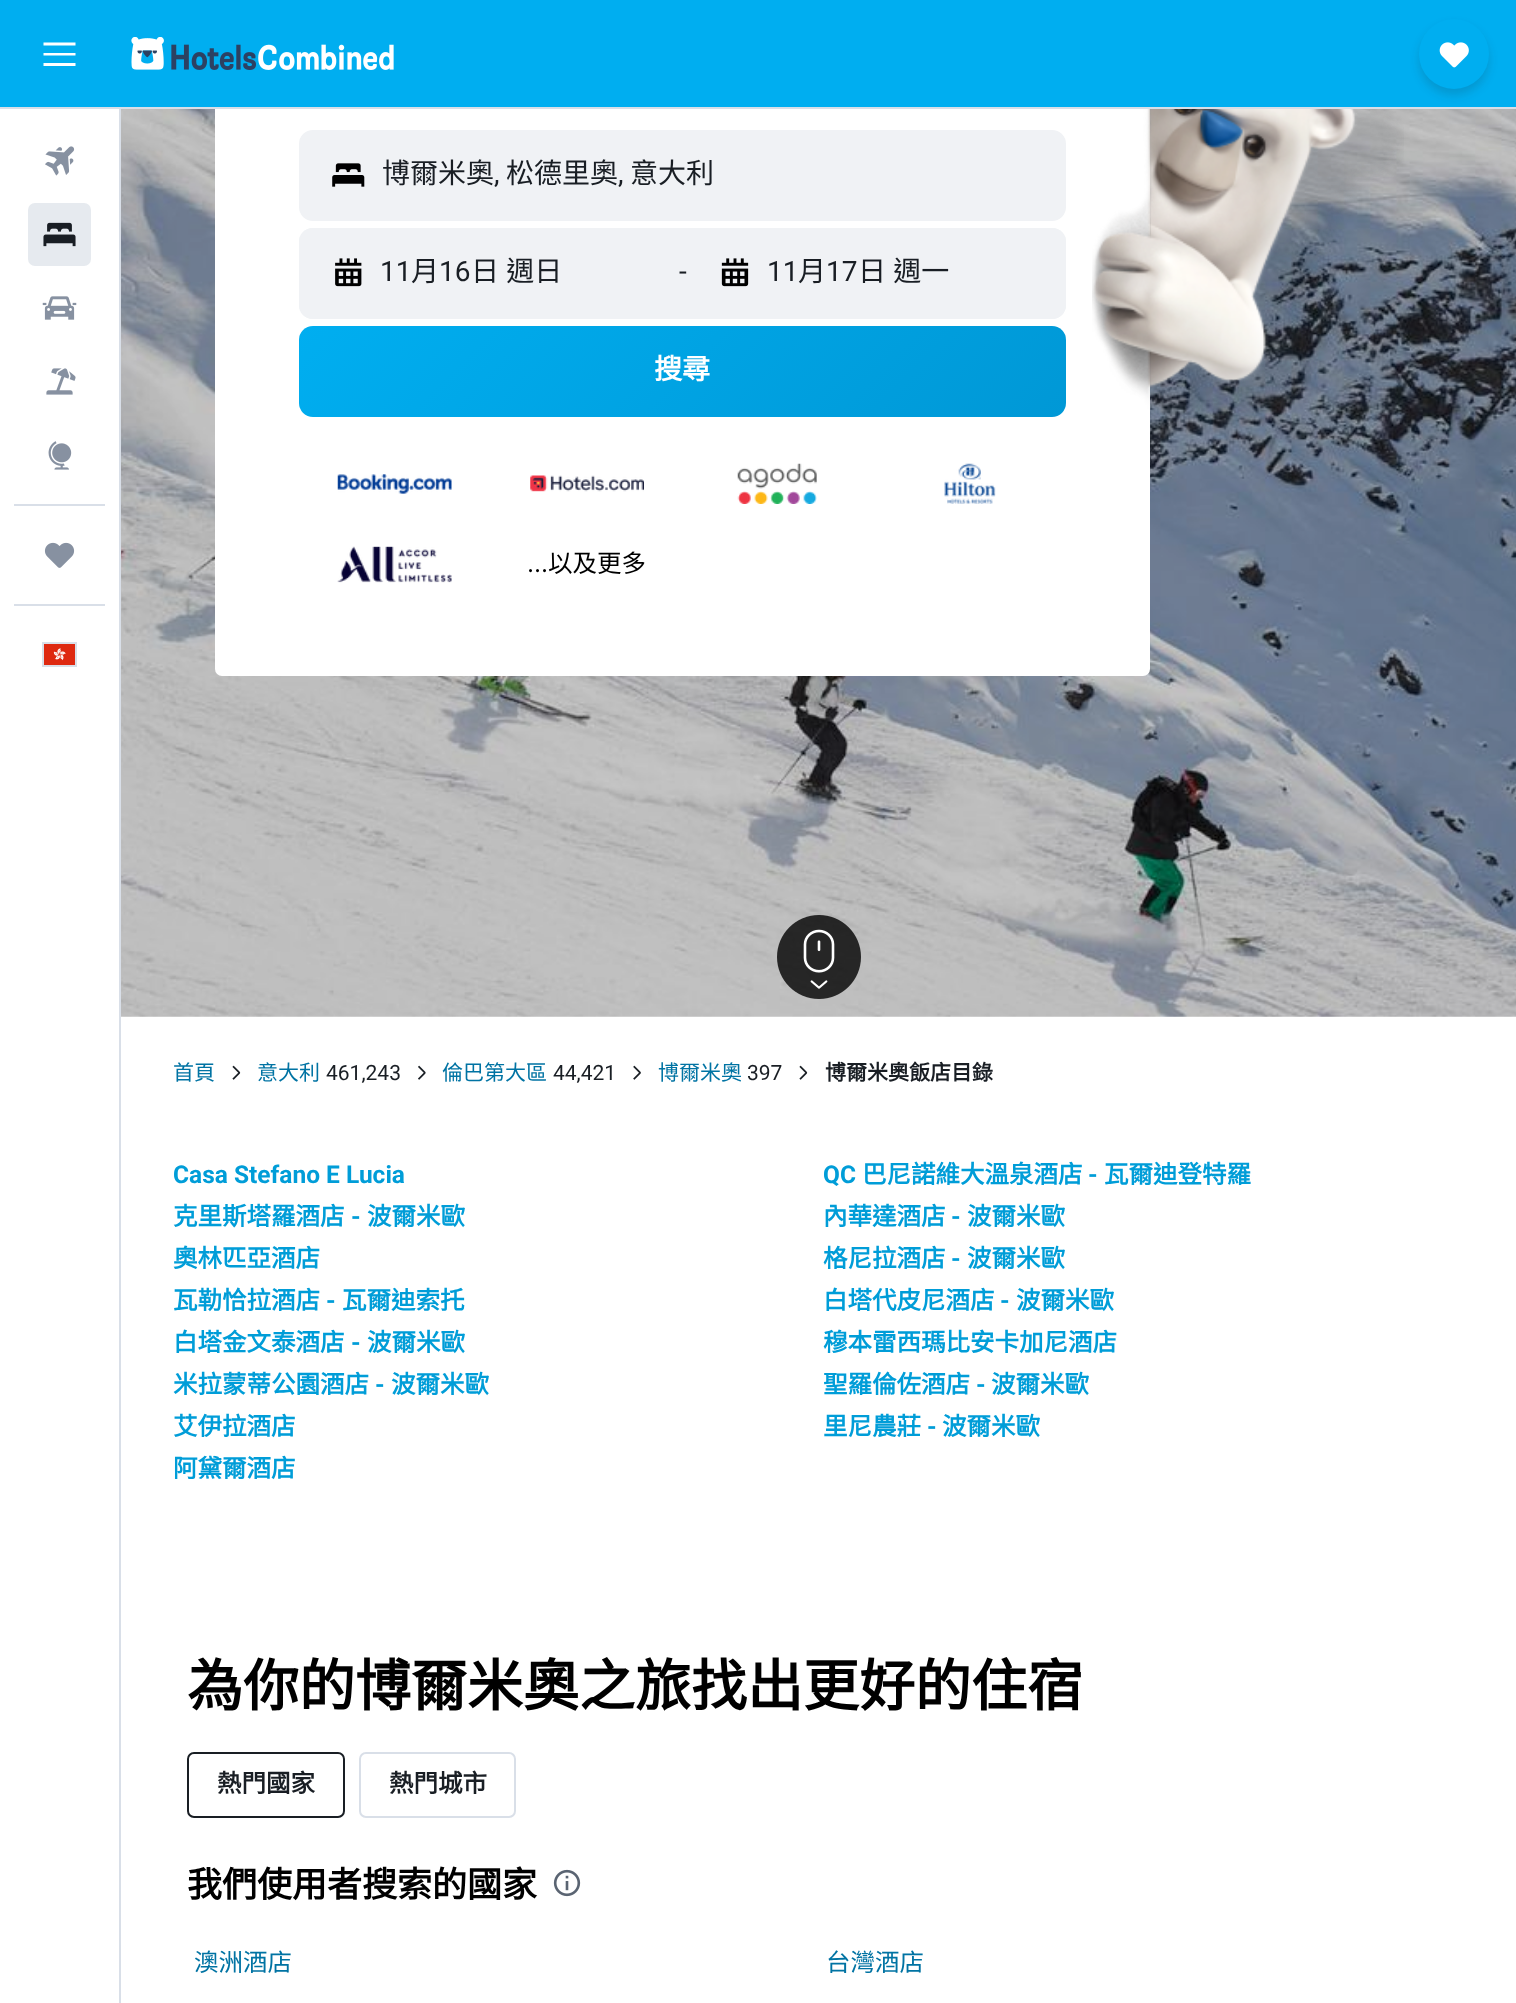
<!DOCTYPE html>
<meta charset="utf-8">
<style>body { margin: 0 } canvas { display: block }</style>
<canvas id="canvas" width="1516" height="2003"></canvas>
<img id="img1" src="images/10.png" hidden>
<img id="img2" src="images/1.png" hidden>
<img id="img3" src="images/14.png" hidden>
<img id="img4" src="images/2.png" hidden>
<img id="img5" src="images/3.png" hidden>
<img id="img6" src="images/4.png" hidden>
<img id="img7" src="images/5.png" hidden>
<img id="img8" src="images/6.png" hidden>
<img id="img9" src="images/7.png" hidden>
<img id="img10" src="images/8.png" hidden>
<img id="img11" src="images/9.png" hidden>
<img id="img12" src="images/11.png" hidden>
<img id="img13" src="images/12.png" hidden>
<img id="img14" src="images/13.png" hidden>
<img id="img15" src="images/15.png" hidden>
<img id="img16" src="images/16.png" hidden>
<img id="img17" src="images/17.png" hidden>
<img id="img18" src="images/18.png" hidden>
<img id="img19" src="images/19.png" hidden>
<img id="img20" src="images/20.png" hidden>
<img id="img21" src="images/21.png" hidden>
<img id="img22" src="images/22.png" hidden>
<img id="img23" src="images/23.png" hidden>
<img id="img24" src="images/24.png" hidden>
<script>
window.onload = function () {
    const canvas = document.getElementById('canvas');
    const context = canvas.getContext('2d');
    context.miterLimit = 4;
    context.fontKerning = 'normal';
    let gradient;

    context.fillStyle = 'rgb(255, 255, 255)';
    context.fillRect(0, 0, 1516, 2003);
    context.drawImage(document.getElementById('img1'), 121, 109, 1395, 908);
    context.beginPath();
    context.roundRect(215, -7, 935, 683, 7);
    context.fill();
    context.fillStyle = 'rgb(217, 223, 232)';
    context.fillRect(0, 107, 1516, 2);
    context.fillStyle = 'rgb(0, 174, 240)';
    context.fillRect(0, 0, 1516, 107);
    context.fillStyle = 'rgb(255, 255, 255)';
    context.beginPath();
    context.moveTo(75.5, 45.5);
    context.lineTo(43.5, 45.5);
    context.lineTo(43.5, 42.5);
    context.lineTo(75.5, 42.5);
    context.closePath();
    context.moveTo(75.5, 63);
    context.lineTo(43.5, 63);
    context.lineTo(43.5, 66);
    context.lineTo(75.5, 66);
    context.closePath();
    context.moveTo(75.5, 53);
    context.lineTo(43.5, 53);
    context.lineTo(43.5, 55.5);
    context.lineTo(75.5, 55.5);
    context.closePath();
    context.fill();
    context.drawImage(document.getElementById('img2'), 131, 37, 263, 33);
    context.drawImage(document.getElementById('img3'), 1092, 109, 312, 313);
    context.fillStyle = 'rgba(25, 30, 36, 0.16)';
    context.filter = 'blur(5px)';
    context.beginPath();
    context.roundRect(1419, 25, 70, 70, 35);
    context.fill();
    context.filter = 'none';
    context.fillStyle = 'rgb(0, 174, 240)';
    context.beginPath();
    context.arc(1454, 54, 35, 0, 2 * Math.PI);
    context.fill();
    context.drawImage(document.getElementById('img4'), 1439, 42, 30, 26);
    context.fillStyle = 'rgb(217, 223, 232)';
    context.fillRect(119, 109, 2, 1894);
    context.drawImage(document.getElementById('img5'), 45, 146, 30, 30);
    context.fillStyle = 'rgb(230, 234, 239)';
    context.beginPath();
    context.roundRect(28, 203, 63, 63, 7);
    context.fill();
    context.drawImage(document.getElementById('img6'), 43, 222, 33, 25);
    context.drawImage(document.getElementById('img7'), 42, 296, 35, 24);
    context.drawImage(document.getElementById('img8'), 46, 368, 30, 27);
    context.drawImage(document.getElementById('img9'), 48, 441, 24, 29);
    context.fillStyle = 'rgb(217, 223, 232)';
    context.fillRect(14, 504, 91, 2);
    context.drawImage(document.getElementById('img10'), 44, 542, 31, 26);
    context.fillRect(14, 604, 91, 2);
    context.strokeStyle = 'rgb(217, 223, 232)';
    context.lineWidth = 2;
    context.strokeRect(43, 643, 33, 23);
    context.drawImage(document.getElementById('img11'), 44, 644, 31, 21);
    context.fillStyle = 'rgb(240, 242, 245)';
    context.beginPath();
    context.roundRect(300, 131, 765, 89, 13);
    context.fill();
    context.strokeStyle = 'rgb(240, 242, 245)';
    context.stroke();
    context.drawImage(document.getElementById('img12'), 332, 163, 33, 24);
    context.beginPath();
    context.roundRect(299, 228, 767, 91, 14);
    context.fill();
    context.beginPath();
    context.roundRect(299, 228, 380, 91, 14);
    context.fill();
    context.drawImage(document.getElementById('img13'), 335, 258, 27, 29);
    context.beginPath();
    context.roundRect(686, 228, 380, 91, 14);
    context.fill();
    context.drawImage(document.getElementById('img14'), 721, 258, 28, 29);
    gradient = context.createLinearGradient(468, 157, 897, 585);
    gradient.addColorStop(0, 'rgb(0, 174, 240)');
    gradient.addColorStop(1, 'rgb(0, 152, 214)');
    context.fillStyle = gradient;
    context.beginPath();
    context.roundRect(299, 326, 767, 91, 14);
    context.fill();
    context.drawImage(document.getElementById('img15'), 337, 474, 115, 20);
    context.drawImage(document.getElementById('img16'), 530, 475, 114, 17);
    context.drawImage(document.getElementById('img17'), 737, 463, 80, 41);
    context.drawImage(document.getElementById('img18'), 944, 463, 52, 41);
    context.drawImage(document.getElementById('img19'), 337, 546, 115, 37);
    context.drawImage(document.getElementById('img20'), 777, 915, 84, 84);
    context.drawImage(document.getElementById('img21'), 232, 1065, 9, 15);
    context.drawImage(document.getElementById('img22'), 418, 1065, 8, 15);
    context.drawImage(document.getElementById('img23'), 633, 1065, 8, 15);
    context.drawImage(document.getElementById('img21'), 799, 1065, 9, 15);
    context.beginPath();
    context.roundRect(188, 1753, 156, 64, 6);
    context.strokeStyle = 'rgb(25, 30, 36)';
    context.stroke();
    context.beginPath();
    context.roundRect(360, 1753, 155, 64, 6);
    context.strokeStyle = 'rgb(217, 223, 232)';
    context.stroke();
    context.drawImage(document.getElementById('img24'), 553, 1869, 28, 28);
    context.font = '28px Noto Sans CJK HK';
    context.fillStyle = 'rgb(25, 30, 36)';
    context.fillText('博爾米奧', 382, 183);
    context.font = '28px Roboto';
    context.fillText(',', 494, 183);
    context.font = '28px Noto Sans CJK HK';
    context.fillText('松德里奧', 506, 183);
    context.font = '28px Roboto';
    context.fillText(',', 618, 183);
    context.font = '28px Noto Sans CJK HK';
    context.fillText('意大利', 630, 183);
    context.font = '28px Roboto';
    context.fillText('11', 380, 281);
    context.font = '28px Noto Sans CJK HK';
    context.fillText('月', 411, 281);
    context.font = '28px Roboto';
    context.fillText('16', 439, 281);
    context.wordSpacing = '1px';
    context.font = '28px Noto Sans CJK HK';
    context.fillText('日 週日', 471, 281);
    context.wordSpacing = '0px';
    context.font = '28px Roboto';
    context.fillText('-', 679, 281);
    context.fillText('11', 767, 281);
    context.font = '28px Noto Sans CJK HK';
    context.fillText('月', 798, 281);
    context.font = '28px Roboto';
    context.fillText('17', 826, 281);
    context.wordSpacing = '1px';
    context.font = '28px Noto Sans CJK HK';
    context.fillText('日 週一', 858, 281);
    context.wordSpacing = '0px';
    context.font = 'bold 28px Noto Sans CJK HK';
    context.fillStyle = 'rgb(255, 255, 255)';
    context.fillText('搜尋', 654, 379);
    context.font = '24.5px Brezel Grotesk';
    context.fillStyle = 'rgb(0, 0, 0)';
    context.fillText('...', 527, 572);
    context.font = '24.5px Noto Sans CJK HK';
    context.fillText('以及更多', 548, 572);
    context.font = '21px Noto Sans CJK HK';
    context.fillStyle = 'rgb(0, 115, 163)';
    context.fillText('首頁', 173, 1080);
    context.fillText('意大利', 257, 1080);
    context.font = '21px Roboto';
    context.fillStyle = 'rgb(25, 30, 36)';
    context.fillText('461,243', 326, 1080);
    context.font = '21px Noto Sans CJK HK';
    context.fillStyle = 'rgb(0, 115, 163)';
    context.fillText('倫巴第大區', 442, 1080);
    context.font = '21px Roboto';
    context.fillStyle = 'rgb(25, 30, 36)';
    context.fillText('44,421', 553, 1080);
    context.font = '21px Noto Sans CJK HK';
    context.fillStyle = 'rgb(0, 115, 163)';
    context.fillText('博爾米奧', 658, 1080);
    context.font = '21px Roboto';
    context.fillStyle = 'rgb(25, 30, 36)';
    context.fillText('397', 747, 1080);
    context.font = 'bold 21px Noto Sans CJK HK';
    context.fillText('博爾米奧飯店目錄', 825, 1080);
    context.font = 'bold 24.5px Roboto';
    context.fillStyle = 'rgb(0, 157, 216)';
    context.fillText('Casa Stefano E Lucia', 173, 1183);
    context.fillText('QC', 823, 1183);
    context.font = 'bold 24.5px Noto Sans CJK HK';
    context.fillText('巴尼諾維大溫泉酒店', 862, 1183);
    context.font = 'bold 24.5px Roboto';
    context.fillText('-', 1088, 1183);
    context.font = 'bold 24.5px Noto Sans CJK HK';
    context.fillText('瓦爾迪登特羅', 1104, 1183);
    context.fillText('克里斯塔羅酒店', 173, 1225);
    context.font = 'bold 24.5px Roboto';
    context.fillText('-', 351, 1225);
    context.font = 'bold 24.5px Noto Sans CJK HK';
    context.fillText('波爾米歐', 367, 1225);
    context.fillText('內華達酒店', 823, 1225);
    context.font = 'bold 24.5px Roboto';
    context.fillText('-', 951, 1225);
    context.font = 'bold 24.5px Noto Sans CJK HK';
    context.fillText('波爾米歐', 967, 1225);
    context.fillText('奧林匹亞酒店', 173, 1267);
    context.fillText('格尼拉酒店', 823, 1267);
    context.font = 'bold 24.5px Roboto';
    context.fillText('-', 951, 1267);
    context.font = 'bold 24.5px Noto Sans CJK HK';
    context.fillText('波爾米歐', 967, 1267);
    context.fillText('瓦勒恰拉酒店', 173, 1309);
    context.font = 'bold 24.5px Roboto';
    context.fillText('-', 326, 1309);
    context.font = 'bold 24.5px Noto Sans CJK HK';
    context.fillText('瓦爾迪索托', 342, 1309);
    context.fillText('白塔代皮尼酒店', 823, 1309);
    context.font = 'bold 24.5px Roboto';
    context.fillText('-', 1000, 1309);
    context.font = 'bold 24.5px Noto Sans CJK HK';
    context.fillText('波爾米歐', 1016, 1309);
    context.fillText('白塔金文泰酒店', 173, 1351);
    context.font = 'bold 24.5px Roboto';
    context.fillText('-', 351, 1351);
    context.font = 'bold 24.5px Noto Sans CJK HK';
    context.fillText('波爾米歐', 367, 1351);
    context.fillText('穆本雷西瑪比安卡加尼酒店', 823, 1351);
    context.fillText('米拉蒙蒂公園酒店', 173, 1393);
    context.font = 'bold 24.5px Roboto';
    context.fillText('-', 375, 1393);
    context.font = 'bold 24.5px Noto Sans CJK HK';
    context.fillText('波爾米歐', 391, 1393);
    context.fillText('聖羅倫佐酒店', 823, 1393);
    context.font = 'bold 24.5px Roboto';
    context.fillText('-', 976, 1393);
    context.font = 'bold 24.5px Noto Sans CJK HK';
    context.fillText('波爾米歐', 991, 1393);
    context.fillText('艾伊拉酒店', 173, 1435);
    context.fillText('里尼農莊', 823, 1435);
    context.font = 'bold 24.5px Roboto';
    context.fillText('-', 927, 1435);
    context.font = 'bold 24.5px Noto Sans CJK HK';
    context.fillText('波爾米歐', 942, 1435);
    context.fillText('阿黛爾酒店', 173, 1477);
    context.font = 'bold 56px Noto Sans CJK HK';
    context.fillStyle = 'rgb(0, 0, 0)';
    context.fillText('為你的博爾米奧之旅找出更好的住宿', 187, 1706);
    context.font = 'bold 24.5px Noto Sans CJK HK';
    context.fillStyle = 'rgb(25, 30, 36)';
    context.fillText('熱門國家', 217, 1792);
    context.fillText('熱門城市', 389, 1792);
    context.font = 'bold 35px Noto Sans CJK HK';
    context.fillStyle = 'rgb(0, 0, 0)';
    context.fillText('我們使用者搜索的國家', 187, 1897);
    context.font = '24.5px Noto Sans CJK HK';
    context.fillStyle = 'rgb(0, 115, 163)';
    context.fillText('澳洲酒店', 194, 1971);
    context.fillText('台灣酒店', 826, 1971);
};
</script>
